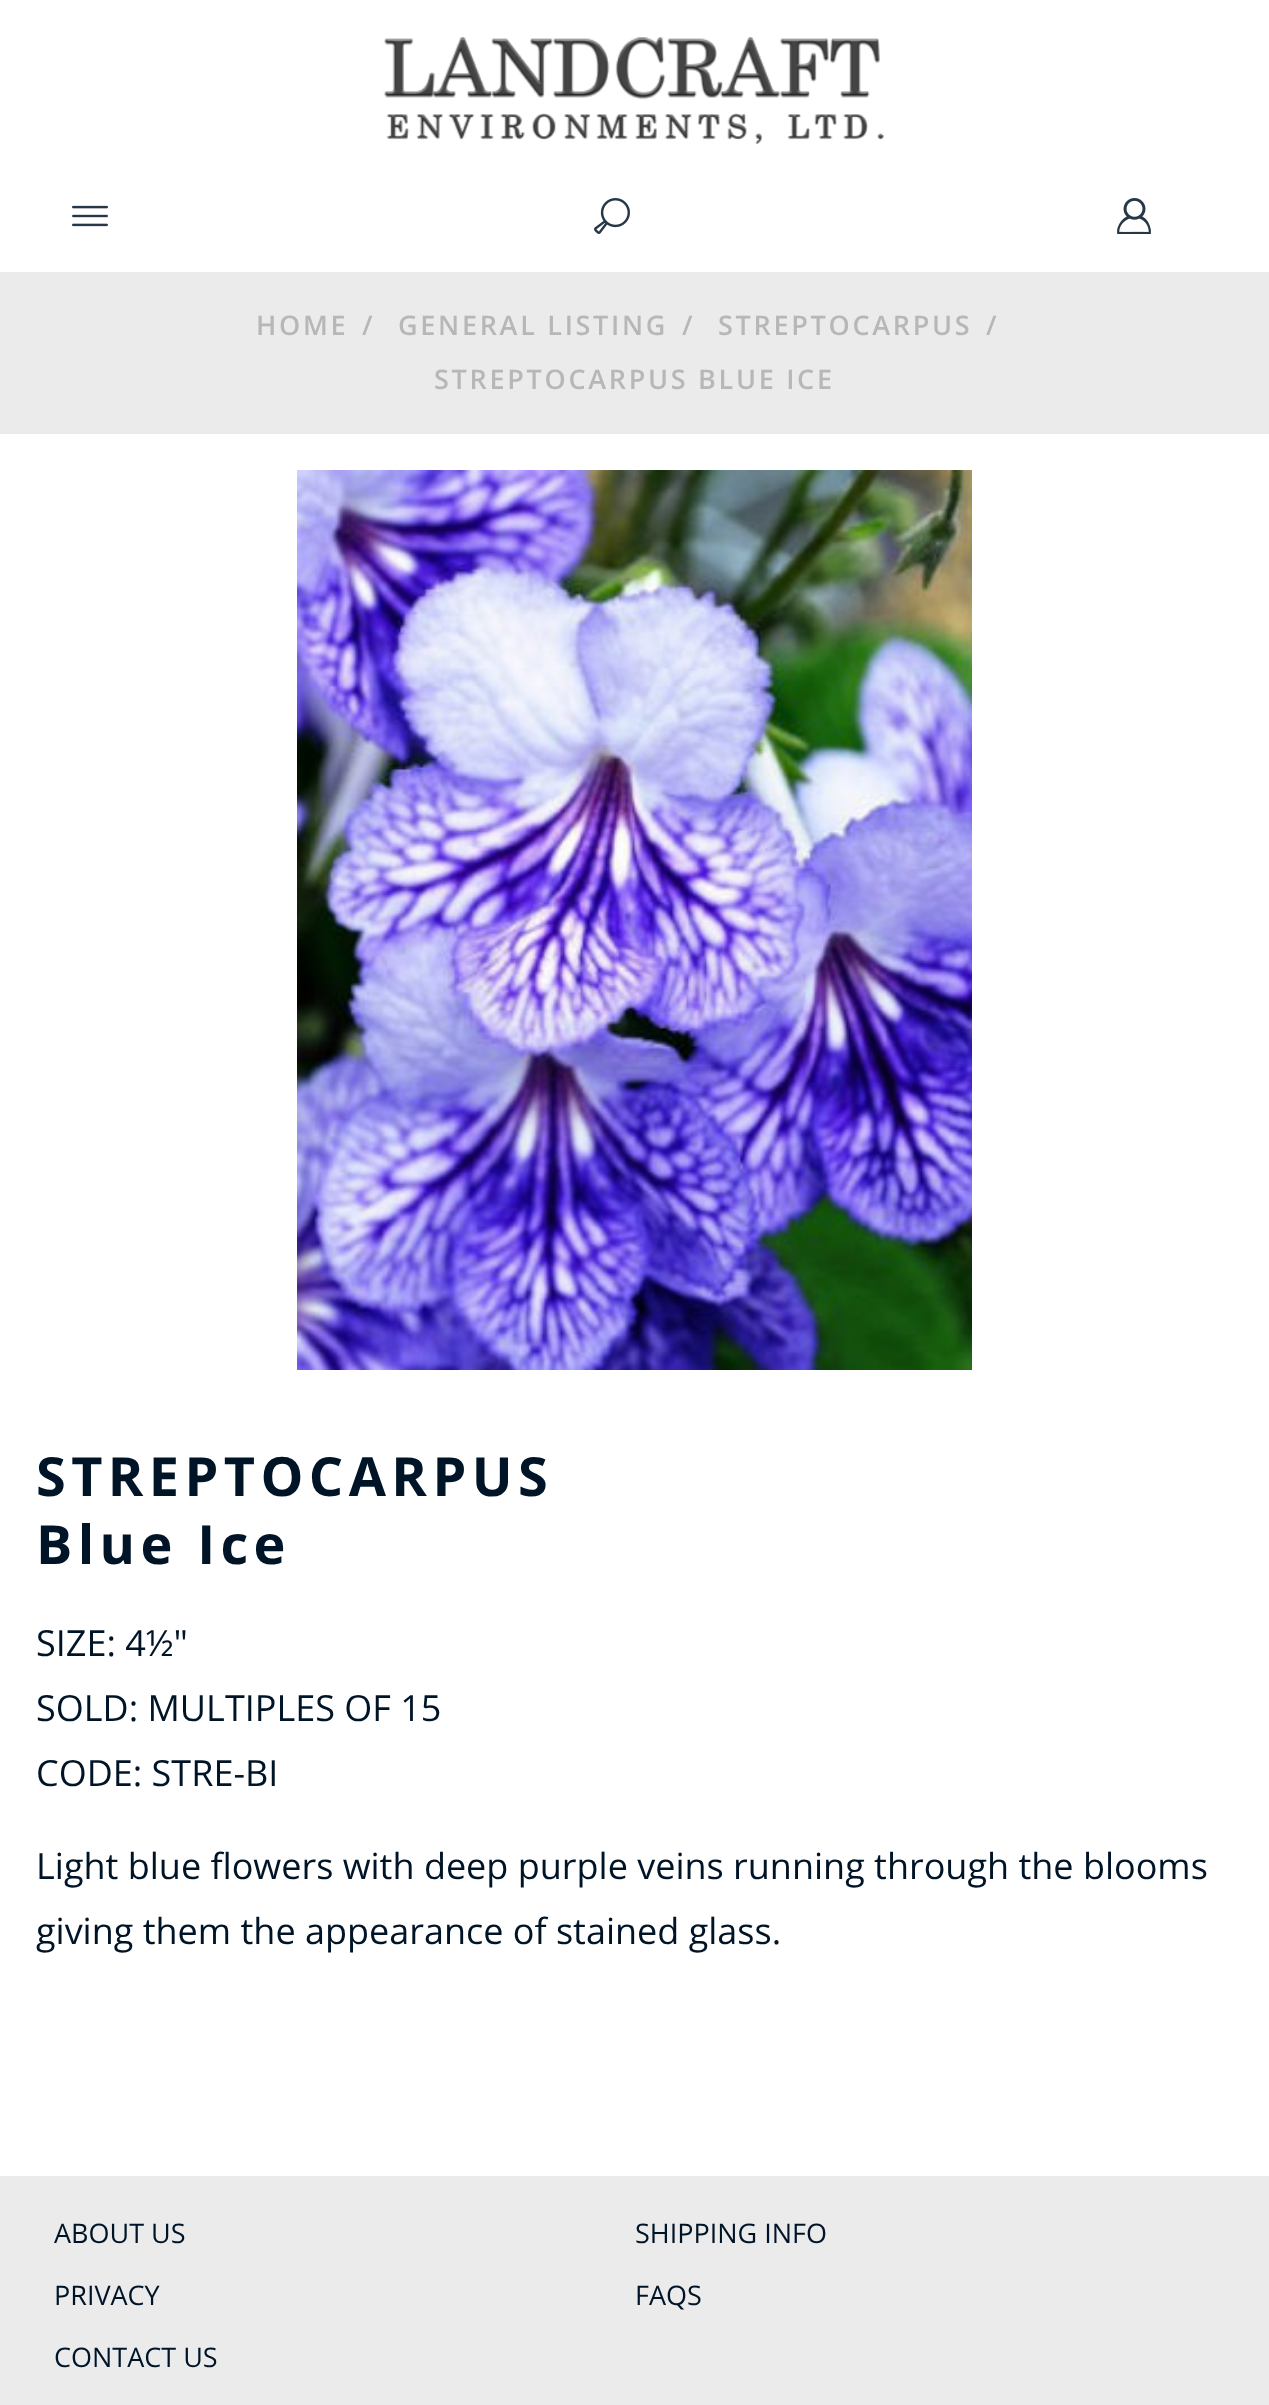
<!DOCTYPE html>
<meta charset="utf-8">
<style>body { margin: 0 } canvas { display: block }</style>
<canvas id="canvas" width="1269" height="2405"></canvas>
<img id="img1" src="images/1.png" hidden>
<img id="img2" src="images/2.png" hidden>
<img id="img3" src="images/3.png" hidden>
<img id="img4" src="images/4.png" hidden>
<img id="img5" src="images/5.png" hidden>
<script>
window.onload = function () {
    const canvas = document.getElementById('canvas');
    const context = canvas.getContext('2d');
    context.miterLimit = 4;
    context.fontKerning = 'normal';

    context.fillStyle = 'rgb(255, 255, 255)';
    context.fillRect(0, 0, 1269, 2405);
    context.drawImage(document.getElementById('img1'), 383, 37, 501, 107);
    context.drawImage(document.getElementById('img2'), 72, 205, 36, 22);
    context.drawImage(document.getElementById('img3'), 594, 198, 36, 36);
    context.drawImage(document.getElementById('img4'), 1117, 198, 34, 36);
    context.fillStyle = 'rgb(235, 235, 235)';
    context.fillRect(0, 272, 1269, 162);
    context.drawImage(document.getElementById('img5'), 297, 470, 675, 900);
    context.fillRect(0, 2176, 1269, 229);
    context.letterSpacing = '2.7px';
    context.font = '600 27px Open Sans';
    context.fillStyle = 'rgb(183, 183, 183)';
    context.fillText('HOME', 256, 335);
    context.fillText('/', 362, 335);
    context.fillText('GENERAL LISTING', 398, 335);
    context.fillText('/', 682, 335);
    context.fillText('STREPTOCARPUS', 718, 335);
    context.fillText('/', 986, 335);
    context.fillText('STREPTOCARPUS BLUE ICE', 434, 389);
    context.letterSpacing = '5.4px';
    context.font = 'bold 54px Open Sans';
    context.fillStyle = 'rgb(0, 20, 39)';
    context.fillText('STREPTOCARPUS', 36, 1496);
    context.fillText('Blue Ice', 36, 1564);
    context.letterSpacing = '0px';
    context.font = '36px Open Sans';
    context.fillText('SIZE: 4½"', 36, 1656);
    context.fillText('SOLD: MULTIPLES OF 15', 36, 1721);
    context.fillText('CODE: STRE-BI', 36, 1786);
    context.fillText('Light blue flowers with deep purple veins running through the blooms', 36, 1879);
    context.fillText('giving them the appearance of stained glass.', 36, 1944);
    context.font = '27px Open Sans';
    context.fillText('ABOUT US', 54, 2243);
    context.fillText('SHIPPING INFO', 635, 2243);
    context.fillText('PRIVACY', 54, 2305);
    context.fillText('FAQS', 635, 2305);
    context.fillText('CONTACT US', 54, 2367);
};
</script>
